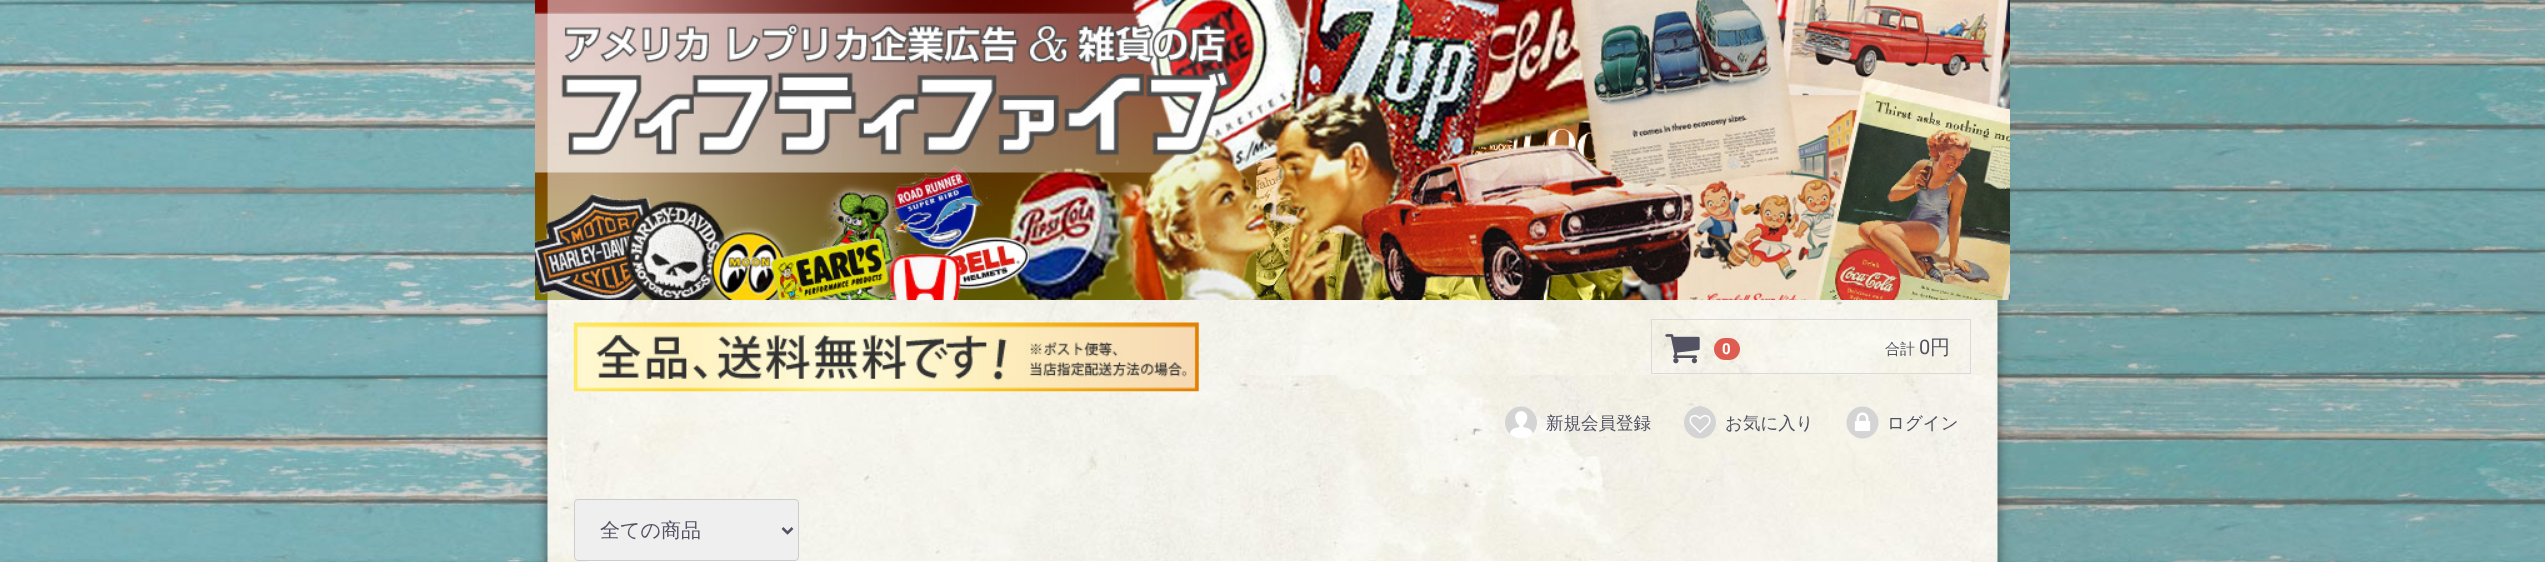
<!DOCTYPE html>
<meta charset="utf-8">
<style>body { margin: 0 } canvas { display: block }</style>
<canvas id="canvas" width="2545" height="562"></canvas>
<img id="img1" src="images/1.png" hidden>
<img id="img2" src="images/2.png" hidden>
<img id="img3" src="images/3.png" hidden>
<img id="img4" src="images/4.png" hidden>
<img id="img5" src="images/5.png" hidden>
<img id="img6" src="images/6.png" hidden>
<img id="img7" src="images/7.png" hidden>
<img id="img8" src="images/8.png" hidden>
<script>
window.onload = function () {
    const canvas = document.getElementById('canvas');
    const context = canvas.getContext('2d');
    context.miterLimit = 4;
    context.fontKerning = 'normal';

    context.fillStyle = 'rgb(255, 255, 255)';
    context.fillRect(0, 0, 2545, 562);
    context.drawImage(document.getElementById('img1'), 0, 0, 2545, 300);
    context.drawImage(document.getElementById('img2'), 535, 0, 1475, 300);
    context.drawImage(document.getElementById('img3'), 0, 300, 2545, 262);
    context.drawImage(document.getElementById('img4'), 573, 322, 626, 70);
    context.strokeStyle = 'rgb(217, 217, 217)';
    context.strokeRect(1651.5, 319.5, 319, 54);
    context.drawImage(document.getElementById('img5'), 1665, 334, 35, 30);
    context.fillStyle = 'rgb(222, 93, 80)';
    context.beginPath();
    context.roundRect(1714, 338, 26, 22, 11);
    context.fill();
    context.drawImage(document.getElementById('img6'), 1505, 406, 32, 33);
    context.drawImage(document.getElementById('img7'), 1684, 406, 32, 33);
    context.drawImage(document.getElementById('img8'), 1846, 406, 33, 33);
    context.fillStyle = 'rgb(239, 239, 239)';
    context.beginPath();
    context.roundRect(574.5, 499.5, 224, 61, 3.5);
    context.fill();
    context.strokeStyle = 'rgb(204, 204, 204)';
    context.stroke();
    context.beginPath();
    context.moveTo(782.5, 528);
    context.lineTo(787.5, 533);
    context.lineTo(792.5, 528);
    context.strokeStyle = 'rgb(82, 82, 99)';
    context.lineWidth = 2.5;
    context.stroke();
    context.fillStyle = 'rgb(255, 255, 255)';
    context.fillRect(588, 561, 1383, 1);
    context.font = 'bold 15px Roboto';
    context.fillText('0', 1722, 354);
    context.font = '500 15px WenQuanYi Zen Hei';
    context.fillStyle = 'rgb(82, 82, 99)';
    context.fillText('合計', 1885, 354);
    context.font = '20px Roboto';
    context.fillText('0', 1919, 354);
    context.font = '500 20px WenQuanYi Zen Hei';
    context.fillText('円', 1930, 354);
    context.font = '500 17.5px WenQuanYi Zen Hei';
    context.fillText('新規会員登録', 1546, 429);
    context.fillText('お気に入り', 1725, 429);
    context.fillText('ログイン', 1887, 429);
    context.font = '500 20px WenQuanYi Zen Hei';
    context.fillText('全ての商品', 600, 537);
};
</script>
